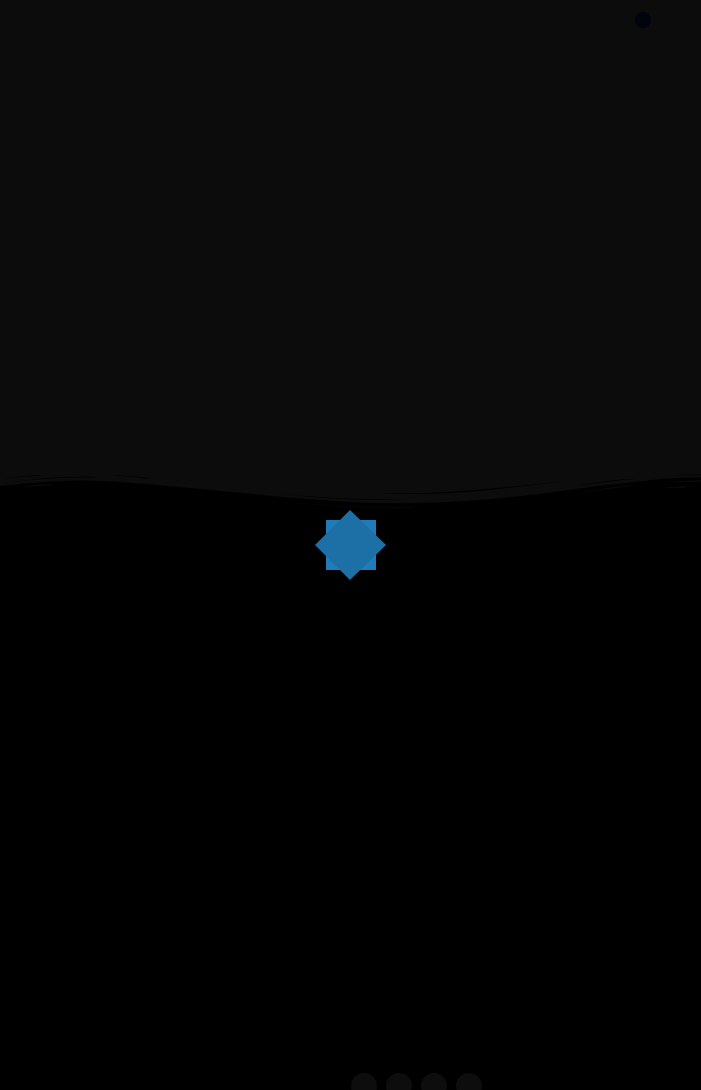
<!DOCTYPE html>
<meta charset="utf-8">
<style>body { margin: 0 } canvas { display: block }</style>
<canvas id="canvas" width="701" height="1090"></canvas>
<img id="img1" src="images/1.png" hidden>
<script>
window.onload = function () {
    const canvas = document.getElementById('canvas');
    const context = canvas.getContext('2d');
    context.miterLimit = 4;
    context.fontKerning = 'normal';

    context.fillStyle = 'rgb(12, 12, 12)';
    context.fillRect(0, 0, 701, 1090);
    context.fillStyle = 'rgb(1, 4, 12)';
    context.beginPath();
    context.arc(643, 20, 8, 0, 2 * Math.PI);
    context.fill();
    context.fillStyle = 'rgb(0, 0, 0)';
    context.fillRect(0, 474, 701, 616);
    context.drawImage(document.getElementById('img1'), 0, 469, 701, 40);
    context.fillStyle = 'rgb(13, 13, 13)';
    context.beginPath();
    context.arc(364, 1086, 13, 0, 2 * Math.PI);
    context.fill();
    context.beginPath();
    context.arc(399, 1086, 13, 0, 2 * Math.PI);
    context.fill();
    context.beginPath();
    context.arc(434, 1086, 13, 0, 2 * Math.PI);
    context.fill();
    context.beginPath();
    context.arc(469, 1086, 13, 0, 2 * Math.PI);
    context.fill();
    context.fillStyle = 'rgb(32, 124, 184)';
    context.fillRect(326, 520, 50, 50);
    context.fillStyle = 'rgb(29, 112, 165)';
    context.beginPath();
    context.moveTo(350, 510);
    context.lineTo(386, 545);
    context.lineTo(350, 580);
    context.lineTo(315, 545);
    context.closePath();
    context.fill();
};
</script>
